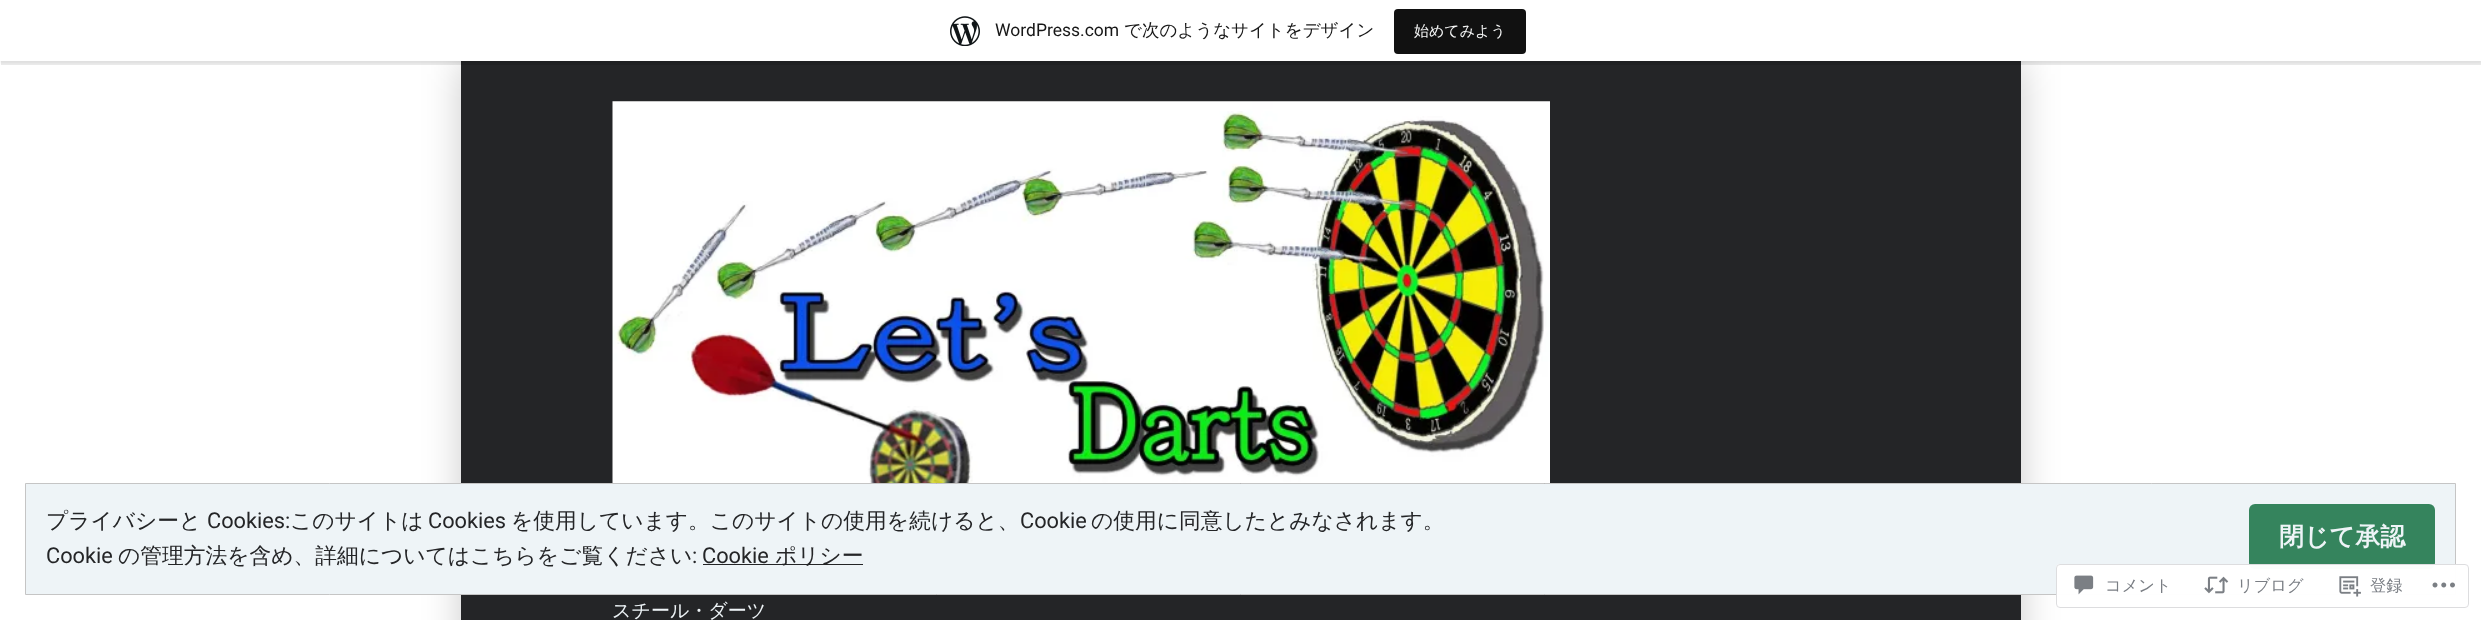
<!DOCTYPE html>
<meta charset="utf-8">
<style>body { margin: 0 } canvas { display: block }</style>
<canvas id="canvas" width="2481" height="620"></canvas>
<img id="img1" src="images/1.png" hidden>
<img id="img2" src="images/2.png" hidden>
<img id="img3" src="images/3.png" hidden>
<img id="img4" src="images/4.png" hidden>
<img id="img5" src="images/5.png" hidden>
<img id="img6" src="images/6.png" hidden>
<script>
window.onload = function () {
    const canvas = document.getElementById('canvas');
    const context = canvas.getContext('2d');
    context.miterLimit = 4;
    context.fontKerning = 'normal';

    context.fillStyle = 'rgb(255, 255, 255)';
    context.fillRect(0, 0, 2481, 620);
    context.fillStyle = 'rgba(0, 0, 0, 0.2)';
    context.filter = 'blur(19px)';
    context.beginPath();
    context.rect(461, 61, 1560, 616);
    context.fill();
    context.filter = 'none';
    context.fillStyle = 'rgb(36, 37, 39)';
    context.fillRect(461, 61, 1560, 559);
    context.fillStyle = 'rgba(0, 0, 0, 0.05)';
    context.filter = 'blur(1px)';
    context.beginPath();
    context.rect(0, 1, 2481, 62);
    context.fill();
    context.filter = 'none';
    context.fillStyle = 'rgba(0, 0, 0, 0.08)';
    context.beginPath();
    context.moveTo(1, 61);
    context.lineTo(1, 65);
    context.lineTo(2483, 65);
    context.lineTo(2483, 4);
    context.lineTo(2481, 4);
    context.lineTo(2481, 61);
    context.closePath();
    context.fill();
    context.fillStyle = 'rgb(255, 255, 255)';
    context.fillRect(0, 0, 2481, 61);
    context.drawImage(document.getElementById('img1'), 950, 16, 30, 30);
    context.fillStyle = 'rgb(17, 17, 17)';
    context.beginPath();
    context.roundRect(1394, 9, 132, 45, 4);
    context.fill();
    context.fillStyle = 'rgb(238, 244, 247)';
    context.beginPath();
    context.rect(25.5, 483.5, 2430, 111);
    context.fill();
    context.strokeStyle = 'rgb(197, 197, 197)';
    context.stroke();
    context.fillStyle = 'rgb(53, 132, 93)';
    context.beginPath();
    context.roundRect(2249, 504, 186, 65, 6);
    context.fill();
    context.fillStyle = 'rgb(36, 37, 39)';
    context.fillRect(703, 564, 160, 1);
    context.fillStyle = 'rgba(255, 255, 255, 0.98)';
    context.beginPath();
    context.roundRect(2056, 564, 413, 44, 4);
    context.fill();
    context.beginPath();
    context.roundRect(2056.5, 564.5, 412, 43, 3.5);
    context.strokeStyle = 'rgba(220, 220, 222, 0.98)';
    context.stroke();
    context.drawImage(document.getElementById('img2'), 2074, 575, 20, 20);
    context.drawImage(document.getElementById('img3'), 2204, 576, 25, 18);
    context.drawImage(document.getElementById('img4'), 2339, 576, 22, 21);
    context.drawImage(document.getElementById('img5'), 2432, 582, 23, 6);
    context.drawImage(document.getElementById('img6'), 612, 101, 938, 382);
    context.font = '17.5px Roboto';
    context.fillStyle = 'rgb(23, 23, 23)';
    context.fillText('WordPress.com', 995, 36);
    context.font = '500 17.5px WenQuanYi Zen Hei';
    context.fillText('で次のようなサイトをデザイン', 1124, 36);
    context.font = '500 15px WenQuanYi Zen Hei';
    context.fillStyle = 'rgb(246, 247, 247)';
    context.fillText('始めてみよう', 1414, 36);
    context.font = '500 21.75px WenQuanYi Zen Hei';
    context.fillStyle = 'rgb(36, 37, 39)';
    context.fillText('プライバシーと', 46, 528);
    context.font = '21.75px Roboto';
    context.fillText('Cookies:', 207, 528);
    context.font = '500 21.75px WenQuanYi Zen Hei';
    context.fillText('このサイトは', 290, 528);
    context.font = '21.75px Roboto';
    context.fillText('Cookies', 428, 528);
    context.font = '500 21.75px WenQuanYi Zen Hei';
    context.fillText('を使用しています。このサイトの使用を続けると、', 511, 528);
    context.font = '21.75px Roboto';
    context.fillText('Cookie', 1020, 528);
    context.font = '500 21.75px WenQuanYi Zen Hei';
    context.fillText('の使用に同意したとみなされます。', 1091, 528);
    context.font = 'bold 25px WenQuanYi Zen Hei';
    context.fillStyle = 'rgb(238, 244, 247)';
    context.fillText('閉じて承認', 2279, 545);
    context.font = '21.75px Roboto';
    context.fillStyle = 'rgb(36, 37, 39)';
    context.fillText('Cookie', 46, 563);
    context.font = '500 21.75px WenQuanYi Zen Hei';
    context.fillText('の管理方法を含め、詳細についてはこちらをご覧ください', 118, 563);
    context.font = '21.75px Roboto';
    context.fillText(':', 692, 563);
    context.fillText('Cookie', 702, 563);
    context.font = '500 21.75px WenQuanYi Zen Hei';
    context.fillText('ポリシー', 775, 563);
    context.font = '500 16.25px WenQuanYi Zen Hei';
    context.fillStyle = 'rgb(122, 126, 132)';
    context.fillText('コメント', 2105, 591);
    context.fillText('リブログ', 2237, 591);
    context.fillText('登録', 2370, 591);
    context.font = '500 19px WenQuanYi Zen Hei';
    context.fillStyle = 'rgb(238, 244, 247)';
    context.fillText('スチール・ダーツ', 612, 617);
};
</script>
